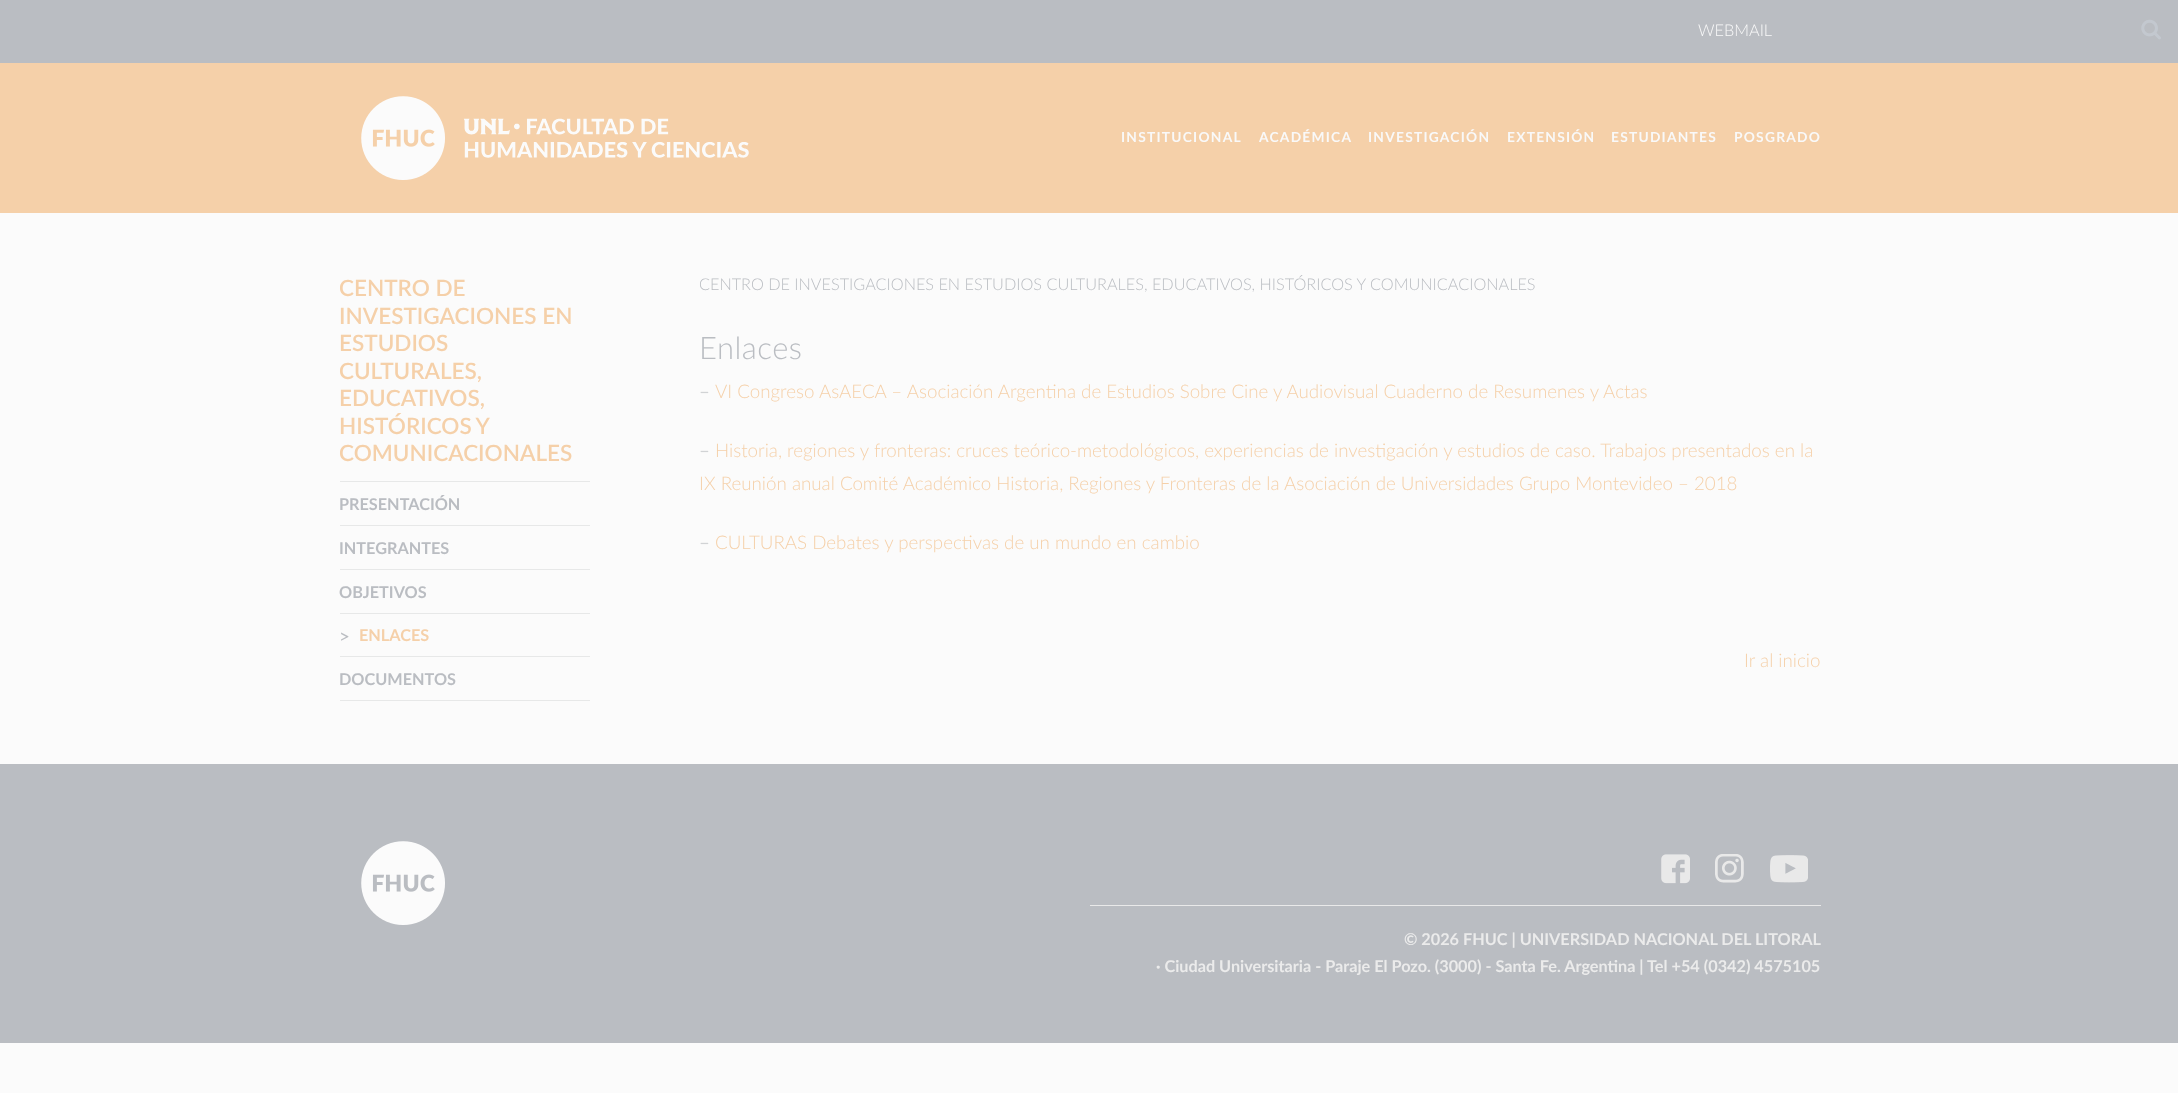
<!DOCTYPE html>
<meta charset="utf-8">
<style>body { margin: 0 } canvas { display: block }</style>
<canvas id="canvas" width="2178" height="1093"></canvas>
<img id="img1" src="images/1.png" hidden>
<img id="img2" src="images/2.png" hidden>
<img id="img3" src="images/3.png" hidden>
<img id="img4" src="images/4.png" hidden>
<img id="img5" src="images/5.png" hidden>
<img id="img6" src="images/6.png" hidden>
<img id="img7" src="images/7.png" hidden>
<script>
window.onload = function () {
    const canvas = document.getElementById('canvas');
    const context = canvas.getContext('2d');
    context.miterLimit = 4;
    context.fontKerning = 'normal';

    context.fillStyle = 'rgb(251, 251, 251)';
    context.fillRect(0, 0, 2178, 1093);
    context.fillStyle = 'rgb(245, 208, 169)';
    context.fillRect(0, 63, 2178, 150);
    context.fillStyle = 'rgb(186, 189, 194)';
    context.fillRect(0, 0, 2178, 63);
    context.drawImage(document.getElementById('img1'), 2141, 19, 20, 21);
    context.drawImage(document.getElementById('img2'), 361, 96, 84, 84);
    context.drawImage(document.getElementById('img3'), 463, 118, 286, 40);
    context.fillStyle = 'rgb(231, 232, 232)';
    context.fillRect(340, 481, 250, 1);
    context.fillRect(340, 525, 250, 1);
    context.fillRect(340, 569, 250, 1);
    context.fillRect(340, 613, 250, 1);
    context.fillRect(340, 656, 250, 1);
    context.fillRect(340, 700, 250, 1);
    context.fillStyle = 'rgb(186, 189, 194)';
    context.fillRect(0, 764, 2178, 279);
    context.drawImage(document.getElementById('img4'), 361, 841, 84, 84);
    context.drawImage(document.getElementById('img5'), 1661, 854, 29, 30);
    context.drawImage(document.getElementById('img6'), 1715, 854, 29, 29);
    context.drawImage(document.getElementById('img7'), 1770, 855, 38, 28);
    context.fillStyle = 'rgb(233, 233, 233)';
    context.fillRect(1090, 905, 731, 1);
    context.font = '300 16.25px Lato';
    context.fillStyle = 'rgb(249, 249, 249)';
    context.fillText('WEBMAIL', 1698, 36);
    context.letterSpacing = '1.25px';
    context.font = 'bold 13.75px Lato';
    context.fillText('INSTITUCIONAL', 1121, 142);
    context.fillText('ACADÉMICA', 1259, 142);
    context.fillText('INVESTIGACIÓN', 1368, 142);
    context.fillText('EXTENSIÓN', 1507, 142);
    context.fillText('ESTUDIANTES', 1611, 142);
    context.fillText('POSGRADO', 1734, 142);
    context.letterSpacing = '0px';
    context.font = '600 22.5px Lato';
    context.fillStyle = 'rgb(245, 208, 169)';
    context.fillText('CENTRO DE', 339, 296);
    context.fillText('INVESTIGACIONES EN', 339, 324);
    context.fillText('ESTUDIOS', 339, 351);
    context.fillText('CULTURALES,', 339, 379);
    context.fillText('EDUCATIVOS,', 339, 406);
    context.wordSpacing = '-1px';
    context.fillText('HISTÓRICOS Y', 339, 434);
    context.wordSpacing = '0px';
    context.fillText('COMUNICACIONALES', 339, 461);
    context.font = 'bold 16.25px Lato';
    context.fillStyle = 'rgb(186, 189, 194)';
    context.fillText('PRESENTACIÓN', 339, 510);
    context.fillText('INTEGRANTES', 339, 554);
    context.fillText('OBJETIVOS', 339, 598);
    context.font = '18.75px Lato';
    context.fillText('>', 339, 643);
    context.font = 'bold 16.25px Lato';
    context.fillStyle = 'rgb(245, 208, 169)';
    context.fillText('ENLACES', 359, 641);
    context.fillStyle = 'rgb(186, 189, 194)';
    context.fillText('DOCUMENTOS', 339, 685);
    context.font = '300 16.25px Lato';
    context.fillText('CENTRO DE INVESTIGACIONES EN ESTUDIOS CULTURALES, EDUCATIVOS, HISTÓRICOS Y COMUNICACIONALES', 699, 290);
    context.letterSpacing = '0.5px';
    context.font = '300 31px Lato';
    context.fillText('Enlaces', 699, 359);
    context.letterSpacing = '0px';
    context.font = '18.75px Lato';
    context.fillStyle = 'rgb(209, 211, 213)';
    context.fillText('–', 699, 398);
    context.font = '300 18.75px Lato';
    context.fillStyle = 'rgb(245, 208, 169)';
    context.fillText('VI Congreso AsAECA – Asociación Argentina de Estudios Sobre Cine y Audiovisual Cuaderno de Resumenes y Actas', 715, 398);
    context.font = '18.75px Lato';
    context.fillStyle = 'rgb(209, 211, 213)';
    context.fillText('–', 699, 457);
    context.font = '300 18.75px Lato';
    context.fillStyle = 'rgb(245, 208, 169)';
    context.fillText('Historia, regiones y fronteras: cruces teórico-metodológicos, experiencias de investigación y estudios de caso. Trabajos presentados en la', 715, 457);
    context.fillText('IX Reunión anual Comité Académico Historia, Regiones y Fronteras de la Asociación de Universidades Grupo Montevideo – 2018', 699, 490);
    context.font = '18.75px Lato';
    context.fillStyle = 'rgb(209, 211, 213)';
    context.fillText('–', 699, 549);
    context.font = '300 18.75px Lato';
    context.fillStyle = 'rgb(245, 208, 169)';
    context.fillText('CULTURAS Debates y perspectivas de un mundo en cambio', 715, 549);
    context.fillText('Ir al inicio', 1744, 667);
    context.font = 'bold 16.25px Lato';
    context.fillStyle = 'rgb(235, 235, 235)';
    context.fillText('© 2026 FHUC | UNIVERSIDAD NACIONAL DEL LITORAL', 1404, 945);
    context.fillText('· Ciudad Universitaria - Paraje El Pozo. (3000) - Santa Fe. Argentina | Tel +54 (0342) 4575105', 1156, 972);
};
</script>
